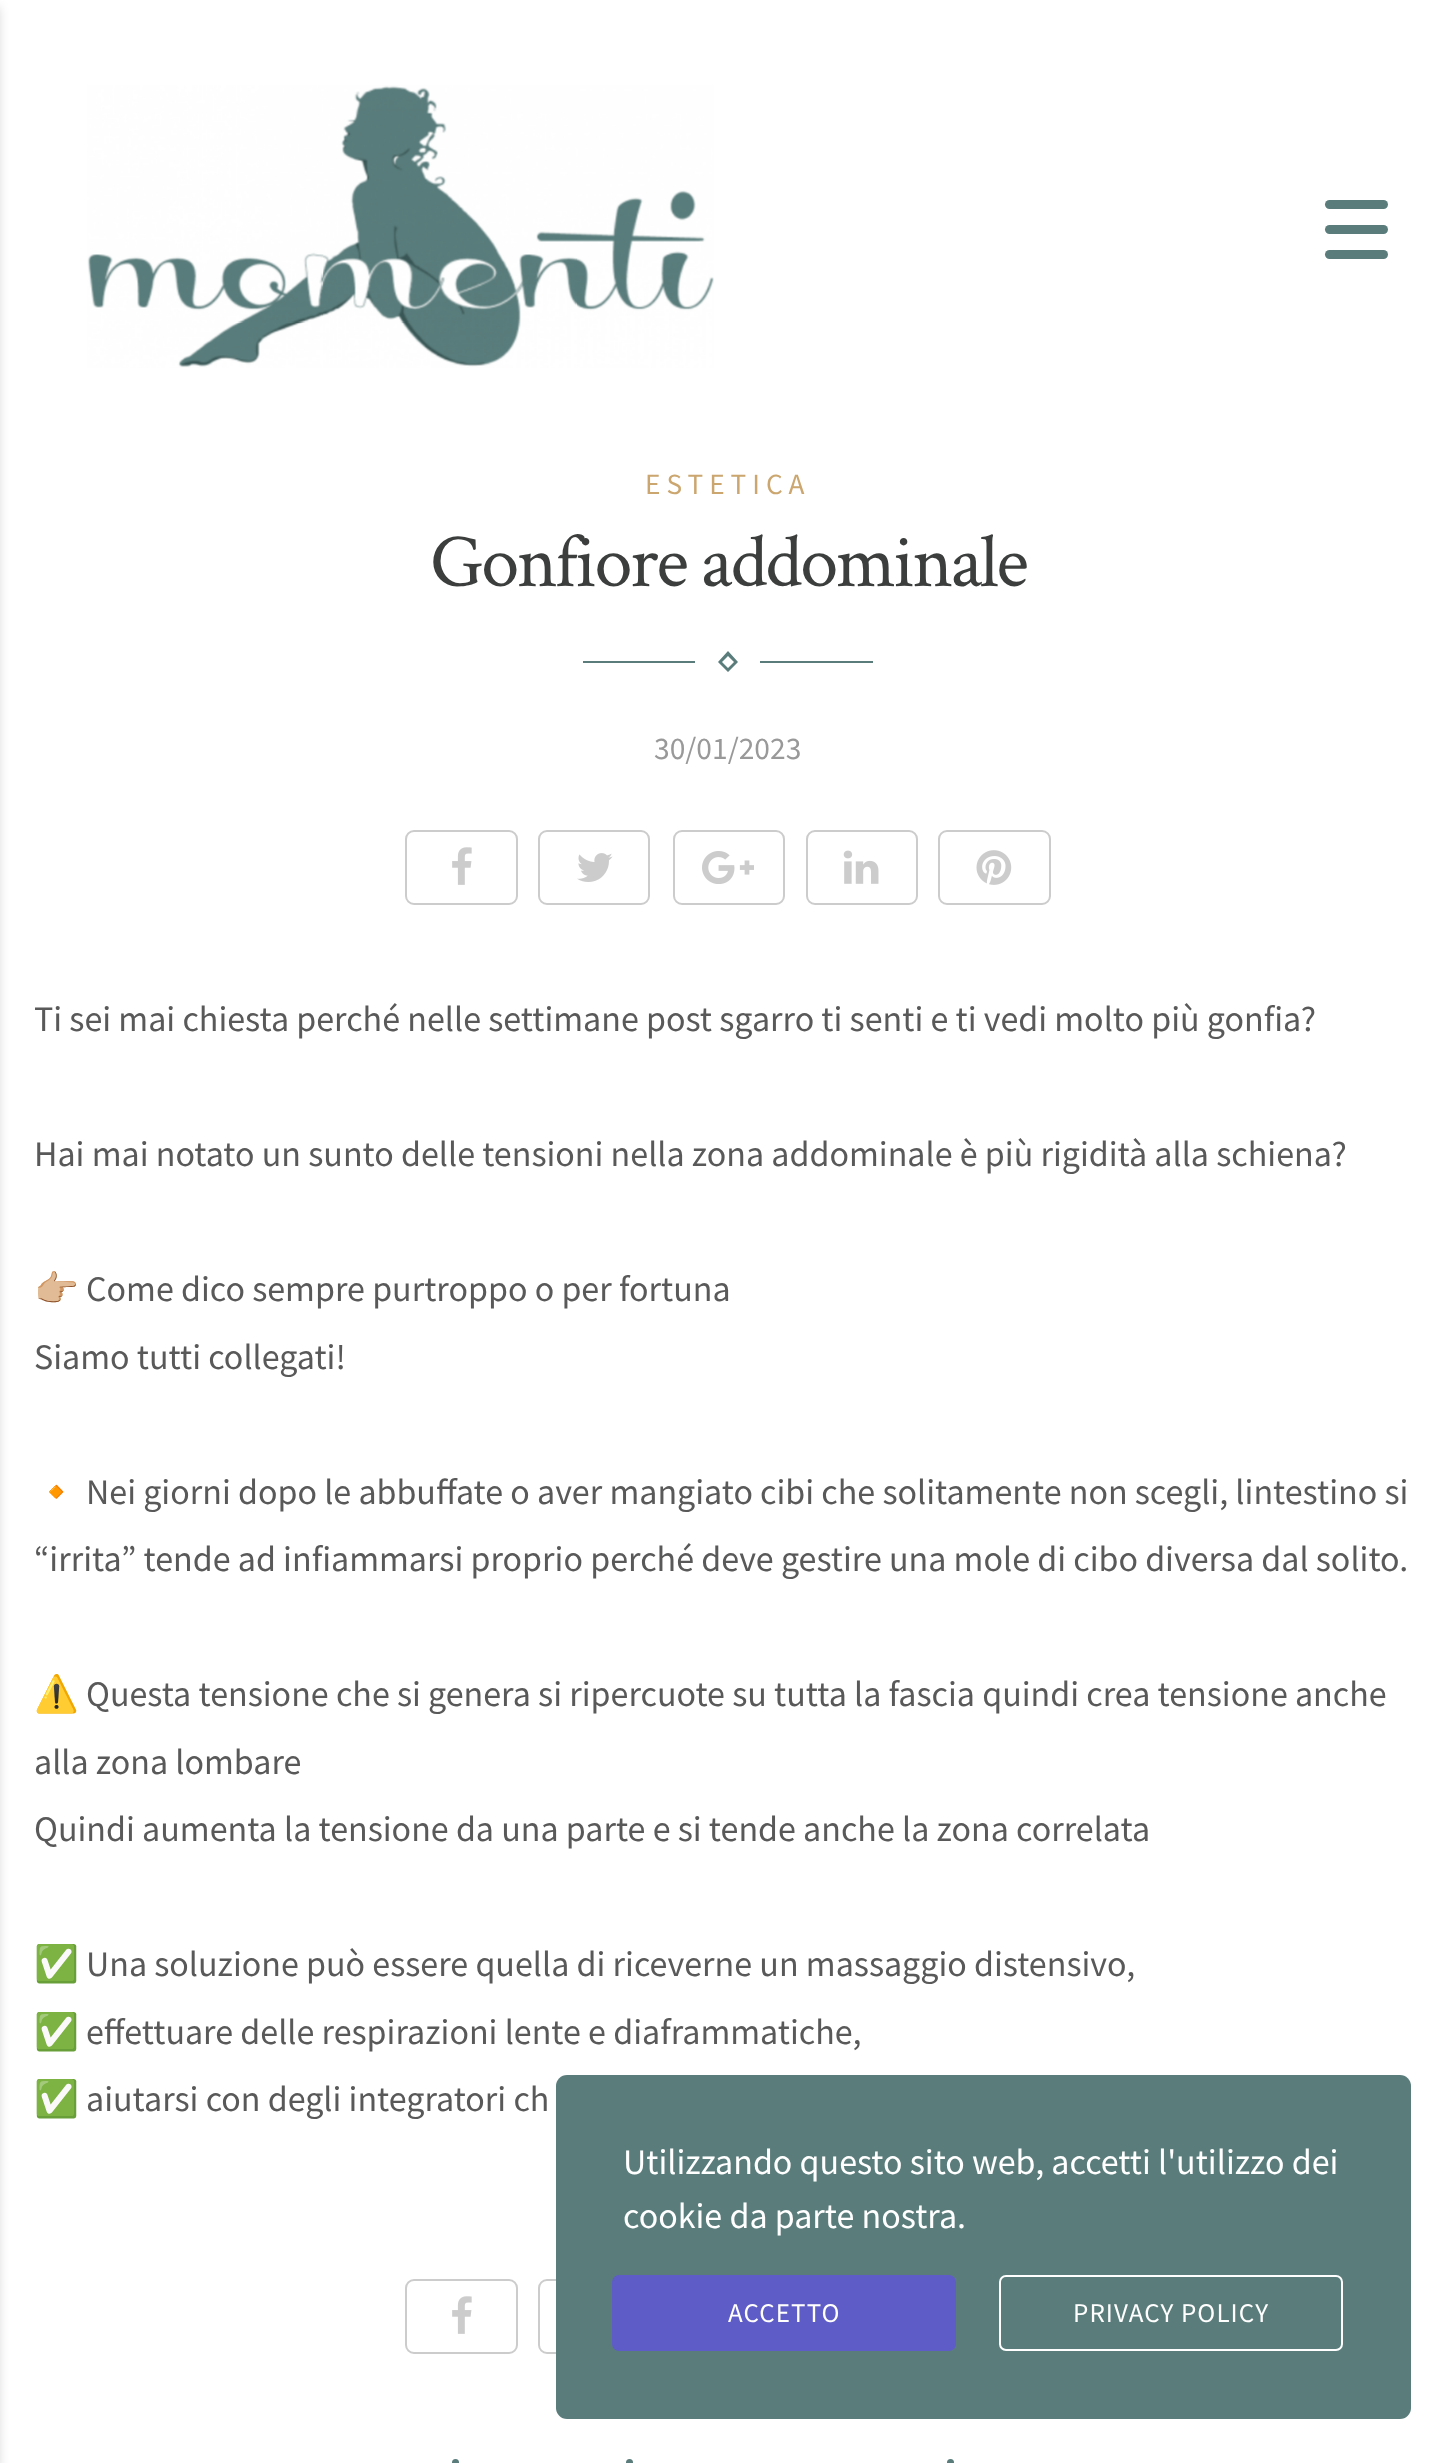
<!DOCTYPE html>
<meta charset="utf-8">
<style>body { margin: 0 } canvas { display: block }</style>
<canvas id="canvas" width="1455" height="2463"></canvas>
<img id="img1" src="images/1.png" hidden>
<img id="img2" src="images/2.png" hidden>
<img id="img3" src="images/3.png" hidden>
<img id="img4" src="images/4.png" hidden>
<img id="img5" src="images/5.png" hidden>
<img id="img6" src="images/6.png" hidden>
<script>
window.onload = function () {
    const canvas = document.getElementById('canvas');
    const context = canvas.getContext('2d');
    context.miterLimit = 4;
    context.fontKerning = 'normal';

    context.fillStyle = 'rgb(255, 255, 255)';
    context.fillRect(0, 0, 1455, 2463);
    context.fillStyle = 'rgba(0, 0, 0, 0.2)';
    context.filter = 'blur(5.5px)';
    context.beginPath();
    context.rect(-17, 7, 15, 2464);
    context.fill();
    context.filter = 'none';
    context.drawImage(document.getElementById('img1'), 87, 85, 627, 283);
    context.fillStyle = 'rgb(90, 125, 124)';
    context.beginPath();
    context.roundRect(1325, 200, 63, 9, 4.5);
    context.fill();
    context.beginPath();
    context.roundRect(1325, 225, 63, 9, 4.5);
    context.fill();
    context.beginPath();
    context.roundRect(1325, 250, 63, 9, 4.5);
    context.fill();
    context.beginPath();
    context.moveTo(760, 663);
    context.lineTo(760, 661);
    context.lineTo(873, 661);
    context.lineTo(873, 663);
    context.closePath();
    context.moveTo(718, 662);
    context.lineTo(728, 651);
    context.lineTo(738, 662);
    context.lineTo(728, 672);
    context.closePath();
    context.moveTo(728, 656);
    context.lineTo(722, 662);
    context.lineTo(728, 668);
    context.lineTo(734, 662);
    context.closePath();
    context.moveTo(583, 661);
    context.lineTo(695, 661);
    context.lineTo(695, 663);
    context.lineTo(583, 663);
    context.closePath();
    context.fill();
    context.beginPath();
    context.roundRect(406, 831, 111, 73, 8);
    context.strokeStyle = 'rgb(204, 204, 204)';
    context.lineWidth = 2;
    context.stroke();
    context.drawImage(document.getElementById('img2'), 452, 847, 20, 38);
    context.beginPath();
    context.roundRect(539, 831, 110, 73, 8);
    context.stroke();
    context.drawImage(document.getElementById('img3'), 577, 853, 36, 29);
    context.beginPath();
    context.roundRect(674, 831, 110, 73, 8);
    context.stroke();
    context.drawImage(document.getElementById('img4'), 702, 851, 52, 33);
    context.beginPath();
    context.roundRect(807, 831, 110, 73, 8);
    context.stroke();
    context.drawImage(document.getElementById('img5'), 843, 850, 36, 34);
    context.beginPath();
    context.roundRect(939, 831, 111, 73, 8);
    context.stroke();
    context.drawImage(document.getElementById('img6'), 976, 850, 36, 35);
    context.beginPath();
    context.roundRect(406, 2280, 111, 73, 8);
    context.stroke();
    context.drawImage(document.getElementById('img2'), 452, 2296, 20, 38);
    context.beginPath();
    context.roundRect(539, 2280, 110, 73, 8);
    context.stroke();
    context.beginPath();
    context.arc(455.5, 2462.5, 3.5, 0, 2 * Math.PI);
    context.fill();
    context.beginPath();
    context.arc(629.5, 2462.5, 3.5, 0, 2 * Math.PI);
    context.fill();
    context.beginPath();
    context.arc(950.5, 2462.5, 3.5, 0, 2 * Math.PI);
    context.fill();
    context.beginPath();
    context.roundRect(556, 2075, 855, 344, 11);
    context.fill();
    context.fillStyle = 'rgb(94, 92, 199)';
    context.beginPath();
    context.roundRect(613, 2276, 342, 74, 6);
    context.fill();
    context.strokeStyle = 'rgb(94, 92, 199)';
    context.stroke();
    context.beginPath();
    context.roundRect(1000, 2276, 342, 74, 6);
    context.strokeStyle = 'rgb(255, 255, 255)';
    context.stroke();
    context.letterSpacing = '6px';
    context.font = '29.25px Source Sans Pro';
    context.fillStyle = 'rgb(203, 166, 111)';
    context.fillText('ESTETICA', 645, 494);
    context.letterSpacing = '-2.25px';
    context.font = '76.5px Crimson Text';
    context.fillStyle = 'rgb(60, 62, 62)';
    context.fillText('Gonfiore addominale', 430, 586);
    context.letterSpacing = '0px';
    context.font = '31.5px Source Sans Pro';
    context.fillStyle = 'rgb(153, 153, 153)';
    context.fillText('30/01/2023', 654, 759);
    context.font = '36px Source Sans Pro';
    context.fillStyle = 'rgb(89, 89, 89)';
    context.fillText('Ti sei mai chiesta perché nelle settimane post sgarro ti senti e ti vedi molto più gonfia?', 34, 1031);
    context.fillText('Hai mai notato un sunto delle tensioni nella zona addominale è più rigidità alla schiena?', 34, 1166);
    context.font = '36px Noto Color Emoji';
    context.fillText('👉🏼', 34, 1301);
    context.font = '36px Source Sans Pro';
    context.fillText('Come dico sempre purtroppo o per fortuna', 86, 1301);
    context.fillText('Siamo tutti collegati!', 34, 1369);
    context.font = '36px Noto Color Emoji';
    context.fillText('🔸', 34, 1504);
    context.font = '36px Source Sans Pro';
    context.fillText('Nei giorni dopo le abbuffate o aver mangiato cibi che solitamente non scegli, lintestino si', 86, 1504);
    context.fillText('“irrita” tende ad infiammarsi proprio perché deve gestire una mole di cibo diversa dal solito.', 34, 1571);
    context.font = '36px Noto Color Emoji';
    context.fillText('⚠️', 34, 1706);
    context.font = '36px Source Sans Pro';
    context.fillText('Questa tensione che si genera si ripercuote su tutta la fascia quindi crea tensione anche', 86, 1706);
    context.fillText('alla zona lombare', 34, 1774);
    context.fillText('Quindi aumenta la tensione da una parte e si tende anche la zona correlata', 34, 1841);
    context.font = '36px Noto Color Emoji';
    context.fillText('✅', 34, 1976);
    context.font = '36px Source Sans Pro';
    context.fillText('Una soluzione può essere quella di riceverne un massaggio distensivo,', 86, 1976);
    context.font = '36px Noto Color Emoji';
    context.fillText('✅', 34, 2044);
    context.font = '36px Source Sans Pro';
    context.fillText('effettuare delle respirazioni lente e diaframmatiche,', 86, 2044);
    context.font = '36px Noto Color Emoji';
    context.fillText('✅', 34, 2111);
    context.font = '36px Source Sans Pro';
    context.fillText('aiutarsi con degli integratori ch', 86, 2111);
    context.fillStyle = 'rgb(255, 255, 255)';
    context.fillText('Utilizzando questo sito web, accetti l\'utilizzo dei', 623, 2174);
    context.fillText('cookie da parte nostra.', 623, 2228);
    context.letterSpacing = '1.1px';
    context.font = '27px Source Sans Pro';
    context.fillText('ACCETTO', 728, 2322);
    context.fillText('PRIVACY POLICY', 1073, 2322);
};
</script>
